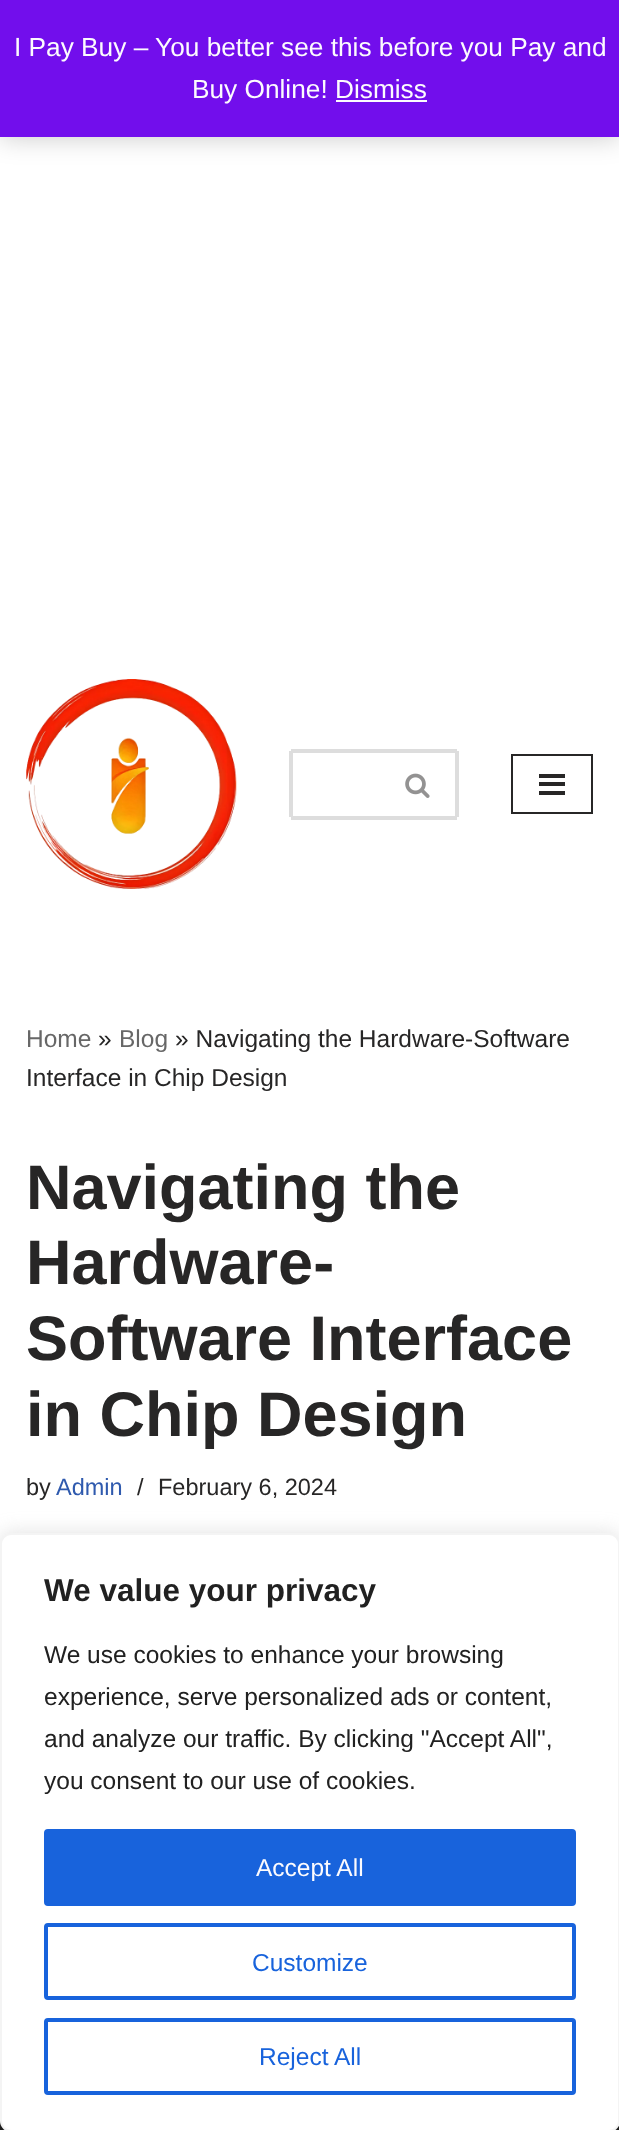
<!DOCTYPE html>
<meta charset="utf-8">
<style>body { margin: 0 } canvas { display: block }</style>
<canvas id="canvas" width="619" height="2130"></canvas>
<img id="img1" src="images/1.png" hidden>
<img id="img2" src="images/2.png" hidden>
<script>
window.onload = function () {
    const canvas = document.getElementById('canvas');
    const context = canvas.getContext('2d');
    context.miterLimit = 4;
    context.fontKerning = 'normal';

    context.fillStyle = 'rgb(255, 255, 255)';
    context.fillRect(0, 0, 619, 2130);
    context.fillStyle = 'rgba(0, 0, 0, 0.2)';
    context.filter = 'blur(13px)';
    context.beginPath();
    context.rect(0, 2, 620, 136);
    context.fill();
    context.filter = 'none';
    context.fillStyle = 'rgb(114, 14, 236)';
    context.fillRect(0, 0, 619, 137);
    context.fillStyle = 'rgb(252, 251, 254)';
    context.fillRect(336, 100, 91, 2);
    context.drawImage(document.getElementById('img1'), 26, 679, 211, 210);
    context.fillStyle = 'rgb(221, 221, 221)';
    context.fillRect(291, 749, 166, 4);
    context.fillRect(291, 816, 89, 4);
    context.fillRect(289, 751, 4, 66);
    context.fillRect(455, 751, 4, 66);
    context.fillRect(380, 816, 77, 4);
    context.drawImage(document.getElementById('img2'), 405, 773, 25, 25);
    context.strokeStyle = 'rgb(39, 38, 38)';
    context.lineWidth = 2;
    context.strokeRect(512, 755, 80, 58);
    context.fillStyle = 'rgb(39, 38, 38)';
    context.fillRect(539, 774, 26, 4);
    context.fillRect(539, 782, 26, 4);
    context.fillRect(539, 791, 26, 4);
    context.fillStyle = 'rgb(18, 18, 18)';
    context.fillRect(0, 2121, 619, 9);
    context.fillStyle = 'rgba(172, 171, 171, 0.3)';
    context.filter = 'blur(9px)';
    context.beginPath();
    context.roundRect(0, 1531, 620, 599, 11);
    context.fill();
    context.filter = 'none';
    context.fillStyle = 'rgb(255, 255, 255)';
    context.beginPath();
    context.roundRect(1, 1534, 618, 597, 10);
    context.fill();
    context.strokeStyle = 'rgb(244, 244, 244)';
    context.stroke();
    context.fillStyle = 'rgb(24, 99, 220)';
    context.beginPath();
    context.roundRect(46, 1831, 528, 73, 2);
    context.fill();
    context.strokeStyle = 'rgb(24, 99, 220)';
    context.lineWidth = 4;
    context.stroke();
    context.beginPath();
    context.roundRect(46, 1925, 528, 73, 2);
    context.stroke();
    context.beginPath();
    context.roundRect(46, 2020, 528, 73, 2);
    context.stroke();
    context.font = '26.25px Liberation Sans';
    context.fillStyle = 'rgb(252, 251, 254)';
    context.fillText('I Pay Buy – You better see this before you Pay and', 14, 56);
    context.fillText('Buy Online! Dismiss', 192, 98);
    context.font = '24.5px Liberation Sans';
    context.fillStyle = 'rgb(103, 103, 103)';
    context.fillText('Home', 26, 1047);
    context.fillStyle = 'rgb(39, 38, 38)';
    context.fillText('»', 98, 1047);
    context.fillStyle = 'rgb(103, 103, 103)';
    context.fillText('Blog', 119, 1047);
    context.fillStyle = 'rgb(39, 38, 38)';
    context.fillText('» Navigating the Hardware-Software', 175, 1047);
    context.fillText('Interface in Chip Design', 26, 1086);
    context.font = 'bold 63px Liberation Sans';
    context.fillText('Navigating the', 26, 1209);
    context.fillText('Hardware-', 26, 1284);
    context.fillText('Software Interface', 26, 1360);
    context.fillText('in Chip Design', 26, 1436);
    context.font = '23.5px Liberation Sans';
    context.fillText('by', 26, 1495);
    context.fillStyle = 'rgb(47, 90, 174)';
    context.fillText('Admin', 56, 1495);
    context.fillStyle = 'rgb(39, 38, 38)';
    context.fillText('/', 137, 1495);
    context.fillText('February 6, 2024', 158, 1495);
    context.font = 'bold 31.5px Liberation Sans';
    context.fillStyle = 'rgb(33, 33, 33)';
    context.fillText('We value your privacy', 44, 1601);
    context.font = '24.5px Liberation Sans';
    context.fillText('We use cookies to enhance your browsing', 44, 1663);
    context.fillText('experience, serve personalized ads or content,', 44, 1705);
    context.fillText('and analyze our traffic. By clicking "Accept All",', 44, 1747);
    context.fillText('you consent to our use of cookies.', 44, 1789);
    context.fillStyle = 'rgb(252, 251, 254)';
    context.fillText('Accept All', 256, 1876);
    context.fillStyle = 'rgb(24, 99, 220)';
    context.fillText('Customize', 252, 1971);
    context.fillText('Reject All', 259, 2065);
};
</script>
